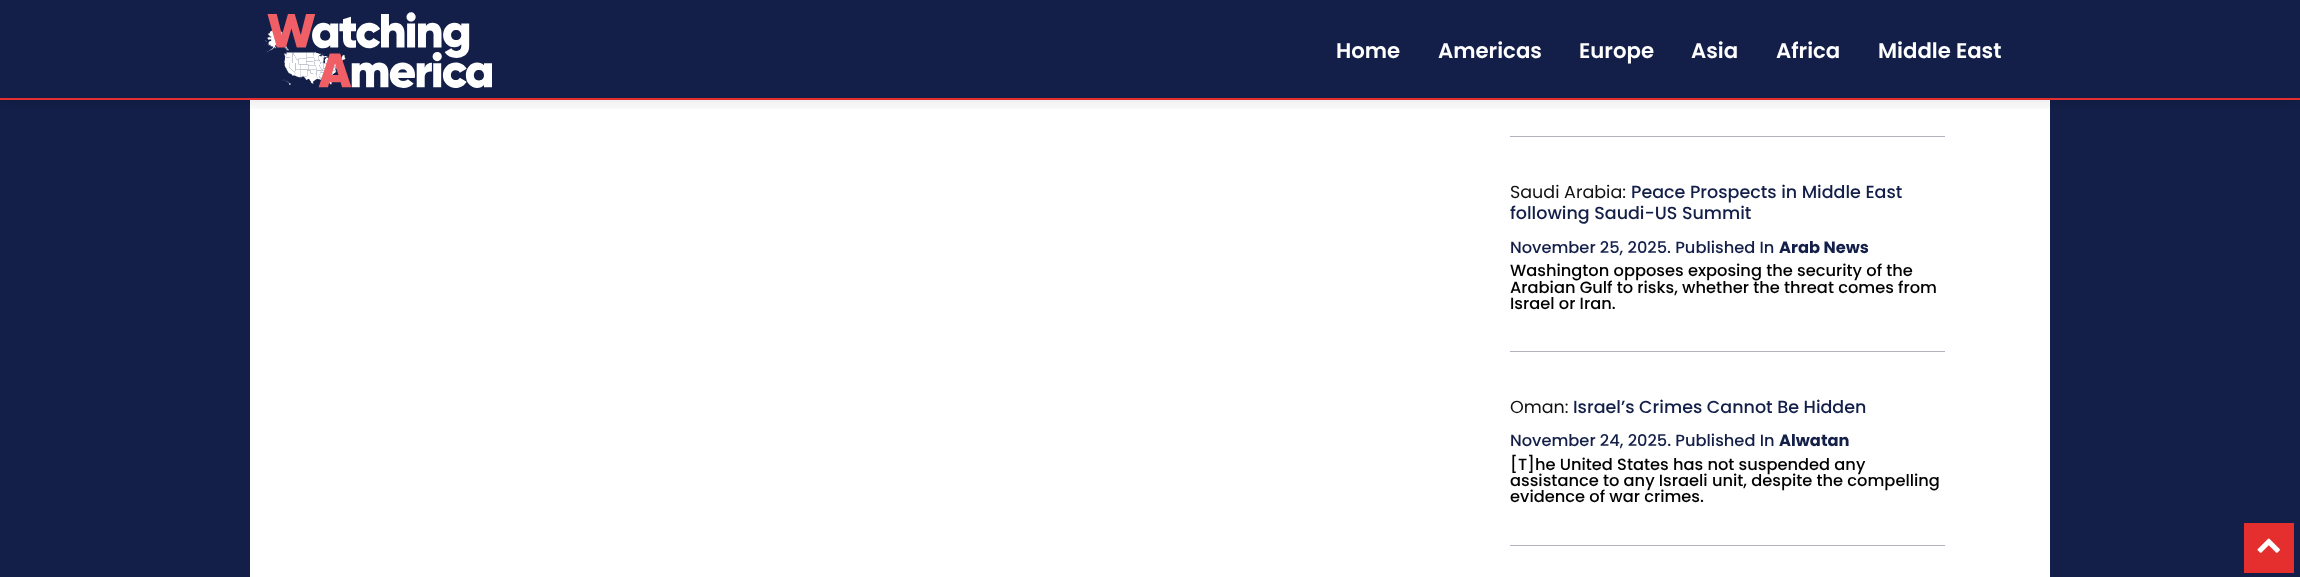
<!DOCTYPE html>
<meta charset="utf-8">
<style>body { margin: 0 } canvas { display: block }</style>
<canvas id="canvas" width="2300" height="577"></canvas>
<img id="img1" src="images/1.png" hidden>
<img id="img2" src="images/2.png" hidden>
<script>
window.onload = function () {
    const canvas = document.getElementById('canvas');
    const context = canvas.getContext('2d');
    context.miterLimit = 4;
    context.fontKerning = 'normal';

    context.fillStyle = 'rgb(19, 31, 73)';
    context.fillRect(0, 0, 2300, 577);
    context.drawImage(document.getElementById('img1'), 262, 12, 230, 76);
    context.fillStyle = 'rgb(229, 46, 46)';
    context.fillRect(0, 98, 2300, 2);
    context.fillStyle = 'rgb(255, 255, 255)';
    context.fillRect(250, 100, 1800, 477);
    context.save();
    context.beginPath();
    context.rect(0, 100, 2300, 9);
    context.clip();
    context.fillStyle = 'rgba(0, 0, 0, 0.12)';
    context.filter = 'blur(9.5px)';
    context.beginPath();
    context.rect(0, 0, 2300, 100);
    context.fill();
    context.filter = 'none';
    context.restore();
    context.fillStyle = 'rgb(177, 180, 188)';
    context.fillRect(1510, 136, 435, 1);
    context.fillRect(1510, 351, 435, 1);
    context.fillRect(1510, 545, 435, 1);
    context.fillStyle = 'rgb(229, 46, 46)';
    context.fillRect(2244, 523, 50, 50);
    context.drawImage(document.getElementById('img2'), 2257, 538, 23, 15);
    context.font = '600 21.25px Poppins';
    context.fillStyle = 'rgb(255, 255, 255)';
    context.fillText('Home', 1336, 58);
    context.fillText('Americas', 1438, 58);
    context.fillText('Europe', 1579, 58);
    context.fillText('Asia', 1691, 58);
    context.fillText('Africa', 1776, 58);
    context.fillText('Middle East', 1878, 58);
    context.font = '17.5px Poppins';
    context.fillStyle = 'rgb(17, 17, 17)';
    context.fillText('Saudi Arabia:', 1510, 198);
    context.font = '500 17.5px Poppins';
    context.fillStyle = 'rgb(19, 31, 73)';
    context.fillText('Peace Prospects in Middle East', 1631, 198);
    context.fillText('following Saudi-US Summit', 1510, 219);
    context.font = '500 16.25px Poppins';
    context.fillText('November 25, 2025. Published In', 1510, 253);
    context.font = 'bold 16.25px Poppins';
    context.fillText('Arab News', 1779, 253);
    context.font = '500 16.25px Poppins';
    context.fillStyle = 'rgb(0, 0, 0)';
    context.fillText('Washington opposes exposing the security of the', 1510, 276);
    context.fillText('Arabian Gulf to risks, whether the threat comes from', 1510, 293);
    context.fillText('Israel or Iran.', 1510, 309);
    context.font = '17.5px Poppins';
    context.fillStyle = 'rgb(17, 17, 17)';
    context.fillText('Oman:', 1510, 413);
    context.font = '500 17.5px Poppins';
    context.fillStyle = 'rgb(19, 31, 73)';
    context.fillText('Israel’s Crimes Cannot Be Hidden', 1573, 413);
    context.font = '500 16.25px Poppins';
    context.fillText('November 24, 2025. Published In', 1510, 446);
    context.font = 'bold 16.25px Poppins';
    context.fillText('Alwatan', 1779, 446);
    context.font = '500 16.25px Poppins';
    context.fillStyle = 'rgb(0, 0, 0)';
    context.fillText('[T]he United States has not suspended any', 1510, 470);
    context.fillText('assistance to any Israeli unit, despite the compelling', 1510, 486);
    context.fillText('evidence of war crimes.', 1510, 502);
};
</script>
